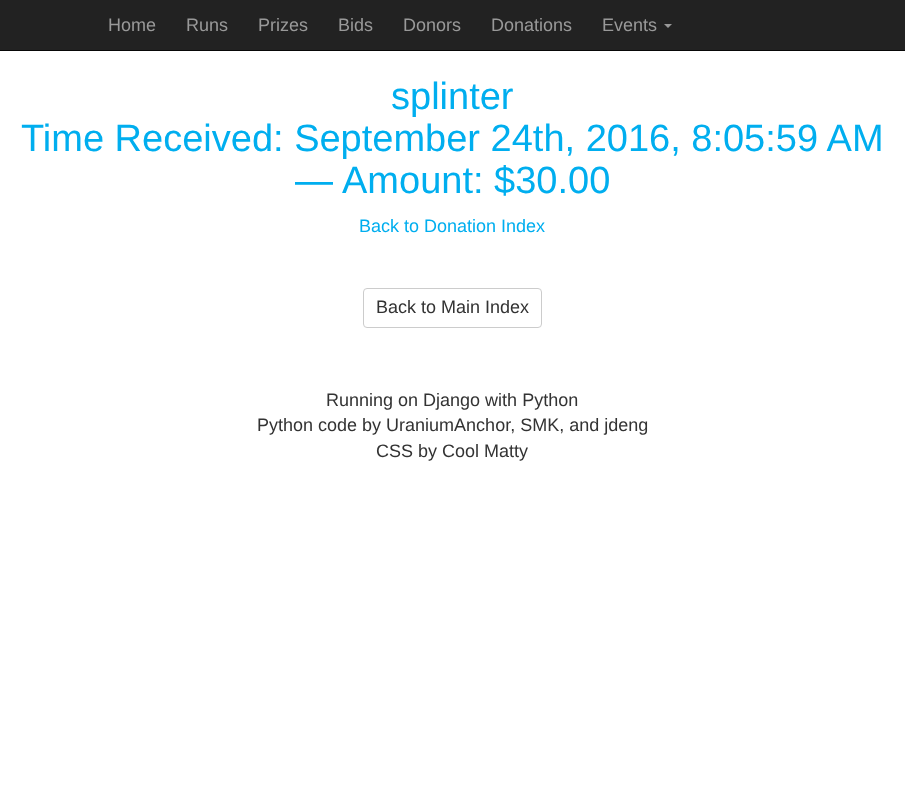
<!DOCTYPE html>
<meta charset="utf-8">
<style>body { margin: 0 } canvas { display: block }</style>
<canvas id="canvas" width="905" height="801"></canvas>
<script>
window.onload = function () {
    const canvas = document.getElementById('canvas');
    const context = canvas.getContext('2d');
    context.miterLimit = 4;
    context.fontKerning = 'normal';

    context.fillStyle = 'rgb(255, 255, 255)';
    context.fillRect(0, 0, 905, 801);
    context.fillStyle = 'rgb(34, 34, 34)';
    context.fillRect(0, 0, 905, 50);
    context.fillStyle = 'rgb(8, 8, 8)';
    context.fillRect(0, 50, 905, 1);
    context.fillStyle = 'rgb(153, 153, 153)';
    context.beginPath();
    context.moveTo(664, 24);
    context.lineTo(672, 24);
    context.lineTo(668, 28);
    context.closePath();
    context.fill();
    context.beginPath();
    context.roundRect(363.5, 288.5, 178, 39, 3.5);
    context.strokeStyle = 'rgb(204, 204, 204)';
    context.stroke();
    context.font = '18px Liberation Sans';
    context.fillText('Home', 108, 31);
    context.fillText('Runs', 186, 31);
    context.fillText('Prizes', 258, 31);
    context.fillText('Bids', 338, 31);
    context.fillText('Donors', 403, 31);
    context.fillText('Donations', 491, 31);
    context.fillText('Events', 602, 31);
    context.font = '38px Liberation Sans';
    context.fillStyle = 'rgb(0, 174, 239)';
    context.fillText('splinter', 391, 109);
    context.fillText('Time Received: September 24th, 2016, 8:05:59 AM', 21, 151);
    context.fillText('—', 295, 193);
    context.fillText('Amount: $30.00', 342, 193);
    context.font = '18px Liberation Sans';
    context.fillText('Back to Donation Index', 359, 232);
    context.fillStyle = 'rgb(51, 51, 51)';
    context.fillText('Back to Main Index', 376, 313);
    context.fillText('Running on Django with Python', 326, 406);
    context.fillText('Python code by UraniumAnchor, SMK, and jdeng', 257, 431);
    context.fillText('CSS by Cool Matty', 376, 457);
};
</script>
